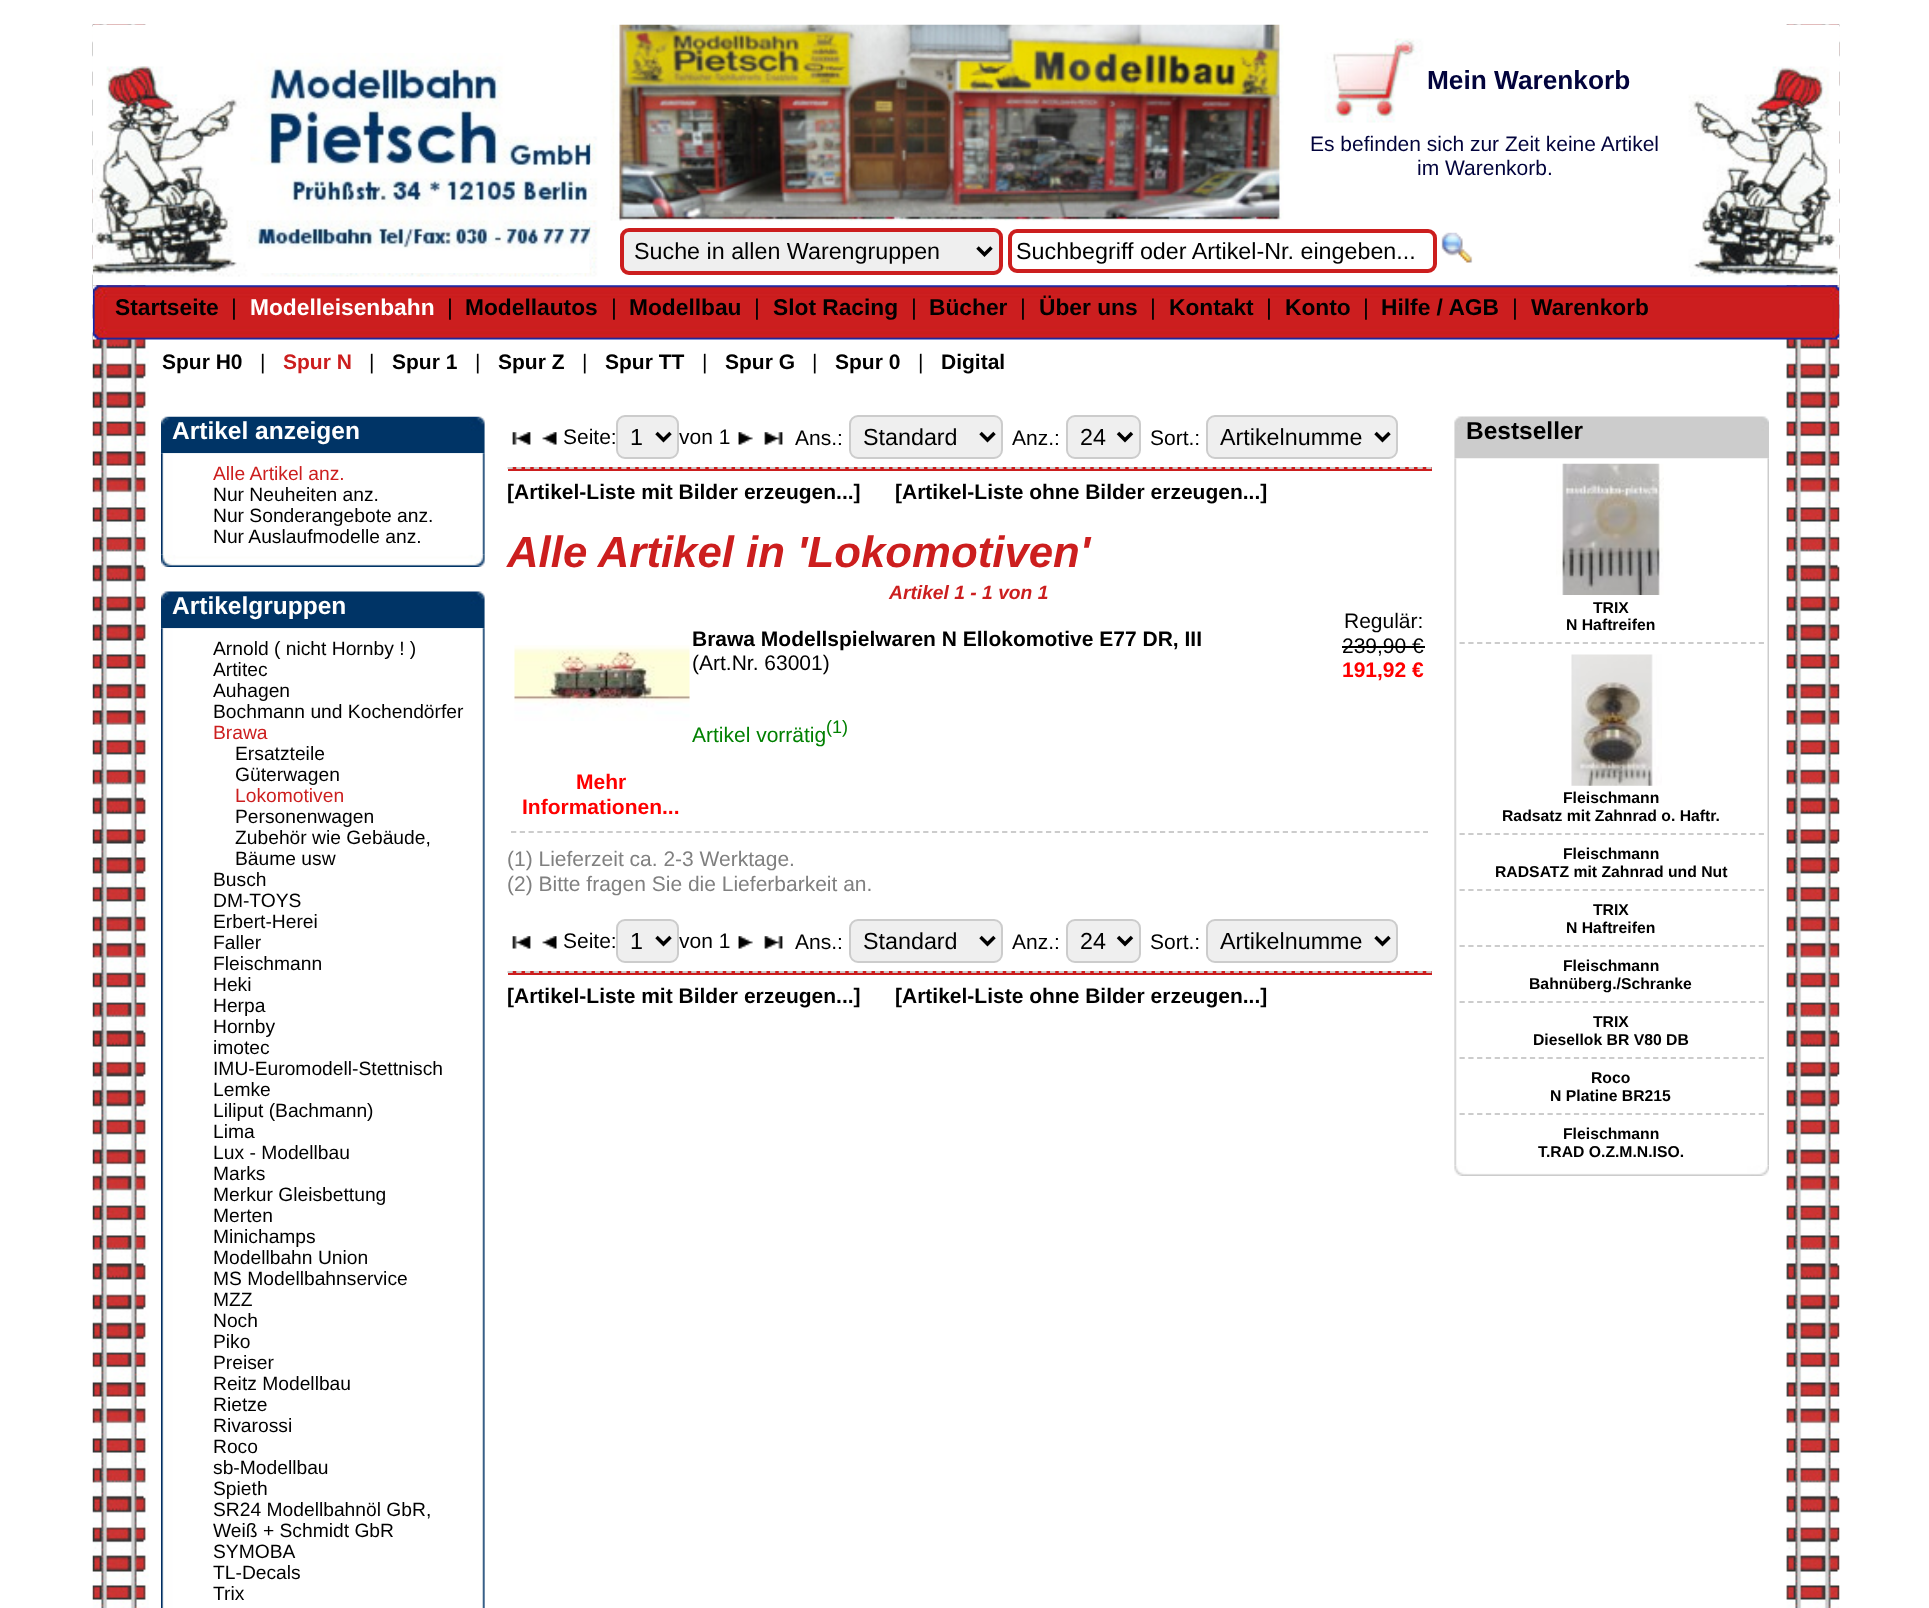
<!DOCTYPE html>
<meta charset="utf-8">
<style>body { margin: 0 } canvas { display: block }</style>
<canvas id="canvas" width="1929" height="1608"></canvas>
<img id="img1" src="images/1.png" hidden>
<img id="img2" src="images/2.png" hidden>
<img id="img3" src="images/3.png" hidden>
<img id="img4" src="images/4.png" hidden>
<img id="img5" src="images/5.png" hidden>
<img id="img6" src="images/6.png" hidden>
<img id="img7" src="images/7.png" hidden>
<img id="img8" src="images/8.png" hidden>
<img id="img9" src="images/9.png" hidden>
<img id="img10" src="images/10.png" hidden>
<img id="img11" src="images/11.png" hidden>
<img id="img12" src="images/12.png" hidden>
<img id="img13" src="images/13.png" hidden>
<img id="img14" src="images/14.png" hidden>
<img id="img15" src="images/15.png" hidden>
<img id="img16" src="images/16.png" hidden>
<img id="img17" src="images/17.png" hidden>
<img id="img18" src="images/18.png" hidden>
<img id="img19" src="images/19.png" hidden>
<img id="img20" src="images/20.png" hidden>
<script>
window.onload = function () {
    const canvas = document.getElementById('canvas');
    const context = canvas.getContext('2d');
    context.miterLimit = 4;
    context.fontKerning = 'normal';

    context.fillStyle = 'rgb(255, 255, 255)';
    context.fillRect(0, 0, 1929, 1608);
    context.drawImage(document.getElementById('img1'), 92, 24, 1748, 1584);
    context.drawImage(document.getElementById('img2'), 92, 24, 1747, 262);
    context.drawImage(document.getElementById('img3'), 250, 53, 340, 220);
    context.fillStyle = 'rgb(239, 239, 239)';
    context.beginPath();
    context.roundRect(622, 230, 379, 43, 7);
    context.fill();
    context.strokeStyle = 'rgb(204, 30, 30)';
    context.lineWidth = 4;
    context.stroke();
    context.beginPath();
    context.moveTo(977.5, 247.5);
    context.lineTo(984.5, 254.5);
    context.lineTo(991.5, 247.5);
    context.strokeStyle = 'rgb(0, 0, 0)';
    context.lineWidth = 3.5;
    context.stroke();
    context.beginPath();
    context.roundRect(1010, 231, 425, 40, 7);
    context.strokeStyle = 'rgb(204, 30, 30)';
    context.lineWidth = 4;
    context.stroke();
    context.drawImage(document.getElementById('img4'), 1441, 232, 32, 31);
    context.drawImage(document.getElementById('img5'), 92, 285, 1748, 55);
    context.drawImage(document.getElementById('img6'), 161, 416, 324, 38);
    context.drawImage(document.getElementById('img7'), 161, 453, 324, 102);
    context.drawImage(document.getElementById('img8'), 161, 554, 324, 13);
    context.drawImage(document.getElementById('img9'), 161, 591, 324, 38);
    context.drawImage(document.getElementById('img10'), 161, 628, 324, 980);
    context.drawImage(document.getElementById('img11'), 512, 432, 19, 13);
    context.drawImage(document.getElementById('img12'), 542, 432, 15, 13);
    context.beginPath();
    context.roundRect(617, 416, 61, 42, 8);
    context.fill();
    context.strokeStyle = 'rgb(204, 204, 204)';
    context.lineWidth = 2;
    context.stroke();
    context.beginPath();
    context.moveTo(656.5, 433);
    context.lineTo(663.5, 440);
    context.lineTo(670.5, 433);
    context.strokeStyle = 'rgb(0, 0, 0)';
    context.lineWidth = 3.5;
    context.stroke();
    context.drawImage(document.getElementById('img13'), 738, 432, 15, 13);
    context.drawImage(document.getElementById('img14'), 764, 432, 19, 13);
    context.beginPath();
    context.roundRect(850, 416, 152, 42, 8);
    context.fill();
    context.strokeStyle = 'rgb(204, 204, 204)';
    context.lineWidth = 2;
    context.stroke();
    context.beginPath();
    context.moveTo(980.5, 433);
    context.lineTo(987.5, 440);
    context.lineTo(994.5, 433);
    context.strokeStyle = 'rgb(0, 0, 0)';
    context.lineWidth = 3.5;
    context.stroke();
    context.beginPath();
    context.roundRect(1067, 416, 73, 42, 8);
    context.fill();
    context.strokeStyle = 'rgb(204, 204, 204)';
    context.lineWidth = 2;
    context.stroke();
    context.beginPath();
    context.moveTo(1118, 433);
    context.lineTo(1125, 440);
    context.lineTo(1132, 433);
    context.strokeStyle = 'rgb(0, 0, 0)';
    context.lineWidth = 3.5;
    context.stroke();
    context.beginPath();
    context.roundRect(1207, 416, 190, 42, 8);
    context.fill();
    context.strokeStyle = 'rgb(204, 204, 204)';
    context.lineWidth = 2;
    context.stroke();
    context.beginPath();
    context.moveTo(1375.5, 433);
    context.lineTo(1382.5, 440);
    context.lineTo(1389.5, 433);
    context.strokeStyle = 'rgb(0, 0, 0)';
    context.lineWidth = 3.5;
    context.stroke();
    context.fillStyle = 'rgb(204, 30, 30)';
    context.fillRect(508, 467, 924, 4);
    context.beginPath();
    context.moveTo(507.5, 468);
    context.lineTo(1431.5, 468);
    context.strokeStyle = 'rgb(204, 204, 204)';
    context.lineWidth = 1.8;
    context.setLineDash([5.25, 3.5]);
    context.stroke();
    context.fillStyle = 'rgb(0, 0, 0)';
    context.fillRect(1342, 646, 83, 2);
    context.drawImage(document.getElementById('img15'), 514, 645, 176, 76);
    context.beginPath();
    context.moveTo(511, 832);
    context.lineTo(1428, 832);
    context.setLineDash([5.25, 3.52]);
    context.stroke();
    context.drawImage(document.getElementById('img11'), 512, 936, 19, 13);
    context.drawImage(document.getElementById('img12'), 542, 936, 15, 13);
    context.fillStyle = 'rgb(239, 239, 239)';
    context.beginPath();
    context.roundRect(617, 920, 61, 42, 8);
    context.fill();
    context.lineWidth = 2;
    context.setLineDash([]);
    context.stroke();
    context.beginPath();
    context.moveTo(656.5, 937);
    context.lineTo(663.5, 944);
    context.lineTo(670.5, 937);
    context.strokeStyle = 'rgb(0, 0, 0)';
    context.lineWidth = 3.5;
    context.stroke();
    context.drawImage(document.getElementById('img13'), 738, 936, 15, 13);
    context.drawImage(document.getElementById('img14'), 764, 936, 19, 13);
    context.beginPath();
    context.roundRect(850, 920, 152, 42, 8);
    context.fill();
    context.strokeStyle = 'rgb(204, 204, 204)';
    context.lineWidth = 2;
    context.stroke();
    context.beginPath();
    context.moveTo(980.5, 937);
    context.lineTo(987.5, 944);
    context.lineTo(994.5, 937);
    context.strokeStyle = 'rgb(0, 0, 0)';
    context.lineWidth = 3.5;
    context.stroke();
    context.beginPath();
    context.roundRect(1067, 920, 73, 42, 8);
    context.fill();
    context.strokeStyle = 'rgb(204, 204, 204)';
    context.lineWidth = 2;
    context.stroke();
    context.beginPath();
    context.moveTo(1118, 937);
    context.lineTo(1125, 944);
    context.lineTo(1132, 937);
    context.strokeStyle = 'rgb(0, 0, 0)';
    context.lineWidth = 3.5;
    context.stroke();
    context.beginPath();
    context.roundRect(1207, 920, 190, 42, 8);
    context.fill();
    context.strokeStyle = 'rgb(204, 204, 204)';
    context.lineWidth = 2;
    context.stroke();
    context.beginPath();
    context.moveTo(1375.5, 937);
    context.lineTo(1382.5, 944);
    context.lineTo(1389.5, 937);
    context.strokeStyle = 'rgb(0, 0, 0)';
    context.lineWidth = 3.5;
    context.stroke();
    context.fillStyle = 'rgb(204, 30, 30)';
    context.fillRect(508, 971, 924, 4);
    context.beginPath();
    context.moveTo(507.5, 972);
    context.lineTo(1431.5, 972);
    context.strokeStyle = 'rgb(204, 204, 204)';
    context.lineWidth = 1.8;
    context.setLineDash([5.25, 3.5]);
    context.stroke();
    context.drawImage(document.getElementById('img16'), 1454, 416, 315, 43);
    context.drawImage(document.getElementById('img17'), 1454, 458, 315, 708);
    context.drawImage(document.getElementById('img18'), 1556, 463, 108, 132);
    context.beginPath();
    context.moveTo(1459.5, 643);
    context.lineTo(1764, 643);
    context.setLineDash([5.25, 3.55]);
    context.stroke();
    context.drawImage(document.getElementById('img19'), 1571, 654, 91, 132);
    context.beginPath();
    context.moveTo(1459.5, 834);
    context.lineTo(1764, 834);
    context.stroke();
    context.beginPath();
    context.moveTo(1459.5, 890);
    context.lineTo(1764, 890);
    context.stroke();
    context.beginPath();
    context.moveTo(1459.5, 946);
    context.lineTo(1764, 946);
    context.stroke();
    context.beginPath();
    context.moveTo(1459.5, 1002);
    context.lineTo(1764, 1002);
    context.stroke();
    context.beginPath();
    context.moveTo(1459.5, 1058);
    context.lineTo(1764, 1058);
    context.stroke();
    context.beginPath();
    context.moveTo(1459.5, 1114);
    context.lineTo(1764, 1114);
    context.stroke();
    context.drawImage(document.getElementById('img20'), 1454, 1165, 315, 11);
    context.font = 'bold 26.25px Liberation Sans';
    context.fillStyle = 'rgb(2, 3, 60)';
    context.fillText('Mein Warenkorb', 1427, 89);
    context.font = '21px Liberation Sans';
    context.fillText('Es befinden sich zur Zeit keine Artikel', 1310, 151);
    context.fillText('im Warenkorb.', 1417, 175);
    context.font = '23.3px Liberation Sans';
    context.fillStyle = 'rgb(0, 0, 0)';
    context.fillText('Suche in allen Warengruppen', 634, 259);
    context.fillText('Suchbegriff oder Artikel-Nr. eingeben...', 1016, 259);
    context.font = 'bold 22.75px Liberation Sans';
    context.fillText('Startseite', 115, 315);
    context.font = '22.75px Liberation Sans';
    context.fillText('|', 231, 315);
    context.font = 'bold 22.75px Liberation Sans';
    context.fillStyle = 'rgb(255, 255, 255)';
    context.fillText('Modelleisenbahn', 250, 315);
    context.font = '22.75px Liberation Sans';
    context.fillStyle = 'rgb(0, 0, 0)';
    context.fillText('|', 447, 315);
    context.font = 'bold 22.75px Liberation Sans';
    context.fillText('Modellautos', 465, 315);
    context.font = '22.75px Liberation Sans';
    context.fillText('|', 611, 315);
    context.font = 'bold 22.75px Liberation Sans';
    context.fillText('Modellbau', 629, 315);
    context.font = '22.75px Liberation Sans';
    context.fillText('|', 754, 315);
    context.font = 'bold 22.75px Liberation Sans';
    context.fillText('Slot Racing', 773, 315);
    context.font = '22.75px Liberation Sans';
    context.fillText('|', 911, 315);
    context.font = 'bold 22.75px Liberation Sans';
    context.fillText('Bücher', 929, 315);
    context.font = '22.75px Liberation Sans';
    context.fillText('|', 1020, 315);
    context.font = 'bold 22.75px Liberation Sans';
    context.fillText('Über uns', 1039, 315);
    context.font = '22.75px Liberation Sans';
    context.fillText('|', 1150, 315);
    context.font = 'bold 22.75px Liberation Sans';
    context.fillText('Kontakt', 1169, 315);
    context.font = '22.75px Liberation Sans';
    context.fillText('|', 1266, 315);
    context.font = 'bold 22.75px Liberation Sans';
    context.fillText('Konto', 1285, 315);
    context.font = '22.75px Liberation Sans';
    context.fillText('|', 1363, 315);
    context.font = 'bold 22.75px Liberation Sans';
    context.fillText('Hilfe / AGB', 1381, 315);
    context.font = '22.75px Liberation Sans';
    context.fillText('|', 1512, 315);
    context.font = 'bold 22.75px Liberation Sans';
    context.fillText('Warenkorb', 1531, 315);
    context.font = 'bold 21px Liberation Sans';
    context.fillText('Spur H0', 162, 369);
    context.font = '21px Liberation Sans';
    context.fillText('|', 260, 369);
    context.font = 'bold 21px Liberation Sans';
    context.fillStyle = 'rgb(204, 30, 30)';
    context.fillText('Spur N', 283, 369);
    context.font = '21px Liberation Sans';
    context.fillStyle = 'rgb(0, 0, 0)';
    context.fillText('|', 369, 369);
    context.font = 'bold 21px Liberation Sans';
    context.fillText('Spur 1', 392, 369);
    context.font = '21px Liberation Sans';
    context.fillText('|', 475, 369);
    context.font = 'bold 21px Liberation Sans';
    context.fillText('Spur Z', 498, 369);
    context.font = '21px Liberation Sans';
    context.fillText('|', 582, 369);
    context.font = 'bold 21px Liberation Sans';
    context.fillText('Spur TT', 605, 369);
    context.font = '21px Liberation Sans';
    context.fillText('|', 702, 369);
    context.font = 'bold 21px Liberation Sans';
    context.fillText('Spur G', 725, 369);
    context.font = '21px Liberation Sans';
    context.fillText('|', 812, 369);
    context.font = 'bold 21px Liberation Sans';
    context.fillText('Spur 0', 835, 369);
    context.font = '21px Liberation Sans';
    context.fillText('|', 918, 369);
    context.font = 'bold 21px Liberation Sans';
    context.fillText('Digital', 941, 369);
    context.font = 'bold 24.5px Liberation Sans';
    context.fillStyle = 'rgb(255, 255, 255)';
    context.fillText('Artikel anzeigen', 172, 439);
    context.font = '19.25px Liberation Sans';
    context.fillStyle = 'rgb(204, 30, 30)';
    context.fillText('Alle Artikel anz.', 213, 480);
    context.fillStyle = 'rgb(0, 0, 0)';
    context.fillText('Nur Neuheiten anz.', 213, 501);
    context.fillText('Nur Sonderangebote anz.', 213, 522);
    context.fillText('Nur Auslaufmodelle anz.', 213, 543);
    context.font = 'bold 24.5px Liberation Sans';
    context.fillStyle = 'rgb(255, 255, 255)';
    context.fillText('Artikelgruppen', 172, 614);
    context.font = '19.25px Liberation Sans';
    context.fillStyle = 'rgb(0, 0, 0)';
    context.fillText('Arnold ( nicht Hornby ! )', 213, 655);
    context.fillText('Artitec', 213, 676);
    context.fillText('Auhagen', 213, 697);
    context.fillText('Bochmann und Kochendörfer', 213, 718);
    context.fillStyle = 'rgb(204, 30, 30)';
    context.fillText('Brawa', 213, 739);
    context.fillStyle = 'rgb(0, 0, 0)';
    context.fillText('Ersatzteile', 235, 760);
    context.fillText('Güterwagen', 235, 781);
    context.fillStyle = 'rgb(204, 30, 30)';
    context.fillText('Lokomotiven', 235, 802);
    context.fillStyle = 'rgb(0, 0, 0)';
    context.fillText('Personenwagen', 235, 823);
    context.fillText('Zubehör wie Gebäude,', 235, 844);
    context.fillText('Bäume usw', 235, 865);
    context.fillText('Busch', 213, 886);
    context.fillText('DM-TOYS', 213, 907);
    context.fillText('Erbert-Herei', 213, 928);
    context.fillText('Faller', 213, 949);
    context.fillText('Fleischmann', 213, 970);
    context.fillText('Heki', 213, 991);
    context.fillText('Herpa', 213, 1012);
    context.fillText('Hornby', 213, 1033);
    context.fillText('imotec', 213, 1054);
    context.fillText('IMU-Euromodell-Stettnisch', 213, 1075);
    context.fillText('Lemke', 213, 1096);
    context.fillText('Liliput (Bachmann)', 213, 1117);
    context.fillText('Lima', 213, 1138);
    context.fillText('Lux - Modellbau', 213, 1159);
    context.fillText('Marks', 213, 1180);
    context.fillText('Merkur Gleisbettung', 213, 1201);
    context.fillText('Merten', 213, 1222);
    context.fillText('Minichamps', 213, 1243);
    context.fillText('Modellbahn Union', 213, 1264);
    context.fillText('MS Modellbahnservice', 213, 1285);
    context.fillText('MZZ', 213, 1306);
    context.fillText('Noch', 213, 1327);
    context.fillText('Piko', 213, 1348);
    context.fillText('Preiser', 213, 1369);
    context.fillText('Reitz Modellbau', 213, 1390);
    context.fillText('Rietze', 213, 1411);
    context.fillText('Rivarossi', 213, 1432);
    context.fillText('Roco', 213, 1453);
    context.fillText('sb-Modellbau', 213, 1474);
    context.fillText('Spieth', 213, 1495);
    context.fillText('SR24 Modellbahnöl GbR,', 213, 1516);
    context.fillText('Weiß + Schmidt GbR', 213, 1537);
    context.fillText('SYMOBA', 213, 1558);
    context.fillText('TL-Decals', 213, 1579);
    context.fillText('Trix', 213, 1600);
    context.font = '21px Liberation Sans';
    context.fillText('Seite:', 563, 444);
    context.font = '23.3px Liberation Sans';
    context.fillText('1', 630, 445);
    context.font = '21px Liberation Sans';
    context.fillText('von 1', 679, 444);
    context.fillText('Ans.:', 795, 445);
    context.font = '23.3px Liberation Sans';
    context.fillText('Standard', 863, 445);
    context.font = '21px Liberation Sans';
    context.fillText('Anz.:', 1012, 445);
    context.font = '23.3px Liberation Sans';
    context.fillText('24', 1080, 445);
    context.font = '21px Liberation Sans';
    context.fillText('Sort.:', 1150, 445);
    context.font = '23.3px Liberation Sans';
    context.fillText('Artikelnumme', 1220, 445);
    context.save();
    context.beginPath();
    context.rect(508, 480, 924, 24);
    context.clip();
    context.font = 'bold 21px Liberation Sans';
    context.fillText('[Artikel-Liste mit Bilder erzeugen...]', 507, 499);
    context.restore();
    context.font = 'bold 21px Liberation Sans';
    context.fillText('[Artikel-Liste ohne Bilder erzeugen...]', 895, 499);
    context.font = 'italic bold 43.75px Liberation Sans';
    context.fillStyle = 'rgb(204, 30, 30)';
    context.fillText('Alle Artikel in \'Lokomotiven\'', 507, 567);
    context.font = 'italic bold 19.25px Liberation Sans';
    context.fillText('Artikel 1 - 1 von 1', 889, 599);
    context.font = 'bold 21px Liberation Sans';
    context.fillStyle = 'rgb(0, 0, 0)';
    context.fillText('Brawa Modellspielwaren N Ellokomotive E77 DR, III', 692, 646);
    context.font = '21px Liberation Sans';
    context.fillText('(Art.Nr. 63001)', 692, 670);
    context.fillStyle = 'rgb(0, 128, 0)';
    context.fillText('Artikel vorrätig', 692, 742);
    context.font = '18px Liberation Sans';
    context.fillText('(1)', 826, 733);
    context.font = '21px Liberation Sans';
    context.fillStyle = 'rgb(0, 0, 0)';
    context.fillText('Regulär:', 1344, 628);
    context.fillText('239,90 €', 1342, 653);
    context.font = 'bold 21px Liberation Sans';
    context.fillStyle = 'rgb(255, 0, 0)';
    context.fillText('191,92 €', 1342, 677);
    context.fillText('Mehr', 576, 789);
    context.fillText('Informationen...', 522, 814);
    context.font = '21px Liberation Sans';
    context.fillStyle = 'rgb(128, 128, 128)';
    context.fillText('(1) Lieferzeit ca. 2-3 Werktage.', 507, 866);
    context.fillText('(2) Bitte fragen Sie die Lieferbarkeit an.', 507, 891);
    context.fillStyle = 'rgb(0, 0, 0)';
    context.fillText('Seite:', 563, 948);
    context.font = '23.3px Liberation Sans';
    context.fillText('1', 630, 949);
    context.font = '21px Liberation Sans';
    context.fillText('von 1', 679, 948);
    context.fillText('Ans.:', 795, 949);
    context.font = '23.3px Liberation Sans';
    context.fillText('Standard', 863, 949);
    context.font = '21px Liberation Sans';
    context.fillText('Anz.:', 1012, 949);
    context.font = '23.3px Liberation Sans';
    context.fillText('24', 1080, 949);
    context.font = '21px Liberation Sans';
    context.fillText('Sort.:', 1150, 949);
    context.font = '23.3px Liberation Sans';
    context.fillText('Artikelnumme', 1220, 949);
    context.save();
    context.beginPath();
    context.rect(508, 984, 924, 24);
    context.clip();
    context.font = 'bold 21px Liberation Sans';
    context.fillText('[Artikel-Liste mit Bilder erzeugen...]', 507, 1003);
    context.restore();
    context.font = 'bold 21px Liberation Sans';
    context.fillText('[Artikel-Liste ohne Bilder erzeugen...]', 895, 1003);
    context.font = 'bold 24.5px Liberation Sans';
    context.fillText('Bestseller', 1466, 439);
    context.font = 'bold 15.75px Liberation Sans';
    context.fillText('TRIX', 1593, 613);
    context.fillText('N Haftreifen', 1566, 630);
    context.fillText('Fleischmann', 1563, 803);
    context.fillText('Radsatz mit Zahnrad o. Haftr.', 1502, 821);
    context.fillText('Fleischmann', 1563, 859);
    context.fillText('RADSATZ mit Zahnrad und Nut', 1495, 877);
    context.fillText('TRIX', 1593, 915);
    context.fillText('N Haftreifen', 1566, 933);
    context.fillText('Fleischmann', 1563, 971);
    context.fillText('Bahnüberg./Schranke', 1529, 989);
    context.fillText('TRIX', 1593, 1027);
    context.fillText('Diesellok BR V80 DB', 1533, 1045);
    context.fillText('Roco', 1591, 1083);
    context.fillText('N Platine BR215', 1550, 1101);
    context.fillText('Fleischmann', 1563, 1139);
    context.fillText('T.RAD O.Z.M.N.ISO.', 1538, 1157);
};
</script>
